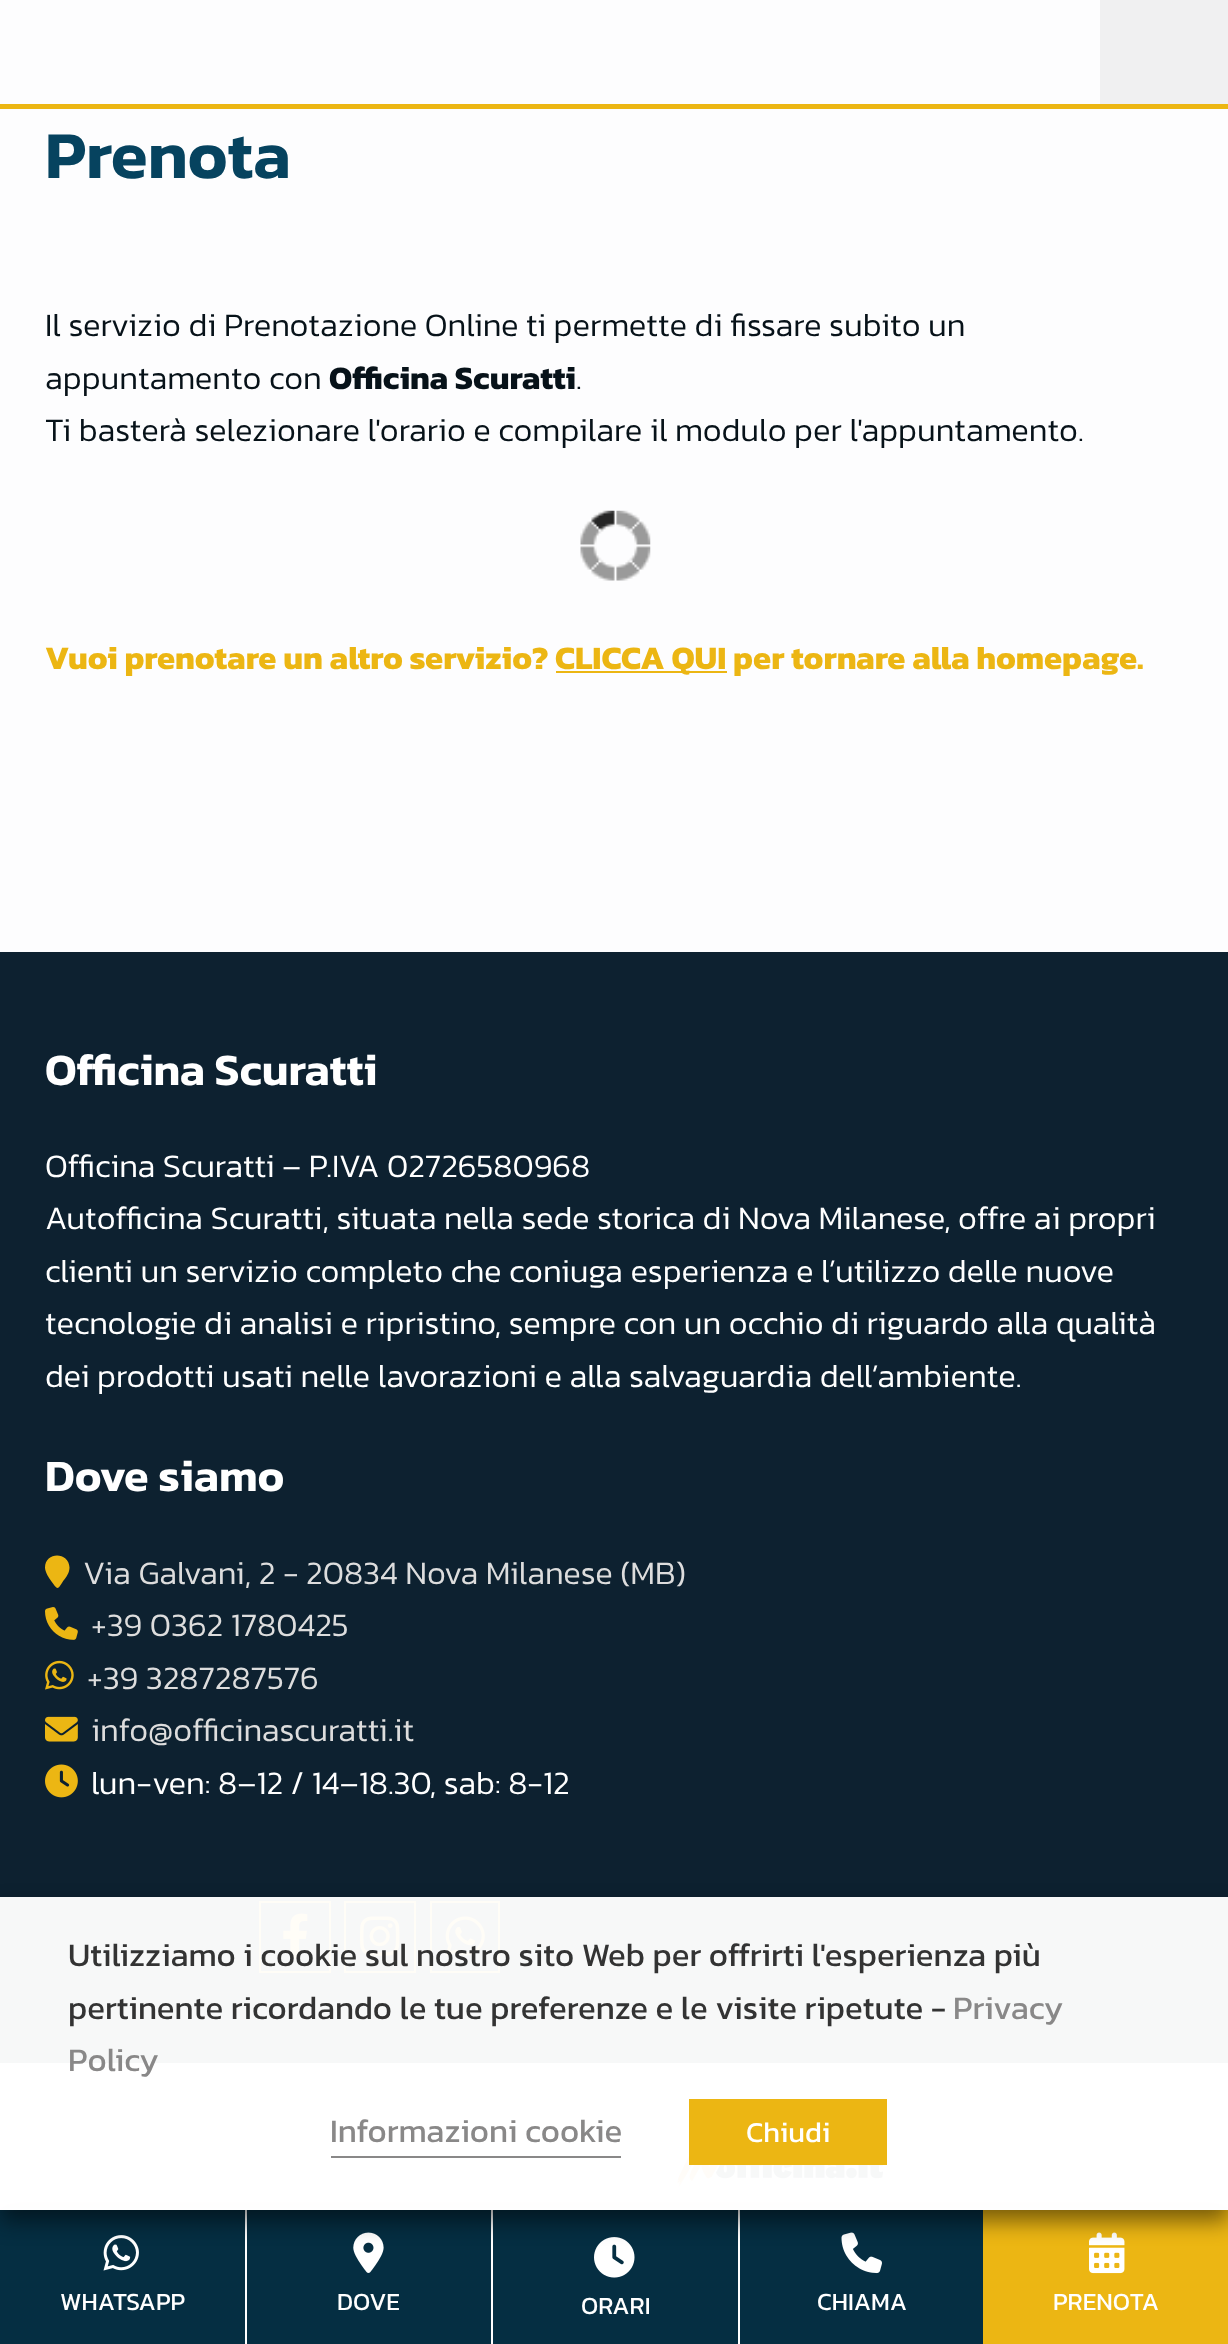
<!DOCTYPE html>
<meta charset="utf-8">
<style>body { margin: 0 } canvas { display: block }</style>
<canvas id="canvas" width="1228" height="2344"></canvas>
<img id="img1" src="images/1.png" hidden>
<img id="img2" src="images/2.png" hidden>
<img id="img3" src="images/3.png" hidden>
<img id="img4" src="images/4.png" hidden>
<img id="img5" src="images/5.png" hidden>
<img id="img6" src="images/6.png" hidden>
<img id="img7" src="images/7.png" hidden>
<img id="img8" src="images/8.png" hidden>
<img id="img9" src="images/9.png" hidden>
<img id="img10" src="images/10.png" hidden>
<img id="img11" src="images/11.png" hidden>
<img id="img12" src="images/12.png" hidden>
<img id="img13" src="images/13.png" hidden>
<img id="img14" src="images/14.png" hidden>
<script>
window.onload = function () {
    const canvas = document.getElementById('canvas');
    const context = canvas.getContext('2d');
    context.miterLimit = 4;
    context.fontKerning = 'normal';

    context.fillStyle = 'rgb(253, 253, 254)';
    context.fillRect(0, 0, 1228, 2344);
    context.fillStyle = 'rgb(236, 182, 19)';
    context.fillRect(0, 104, 1228, 5);
    context.fillStyle = 'rgb(240, 240, 241)';
    context.fillRect(1100, 0, 128, 104);
    context.drawImage(document.getElementById('img1'), 580, 510, 71, 71);
    context.fillStyle = 'rgb(236, 182, 19)';
    context.fillRect(556, 671, 171, 2);
    context.fillStyle = 'rgb(13, 33, 48)';
    context.fillRect(0, 952, 1228, 1111);
    context.fillStyle = 'rgb(236, 182, 19)';
    context.beginPath();
    context.moveTo(69.5, 1567.5);
    context.bezierCurveTo(69.5, 1572.5, 66.5, 1577, 63.5, 1580.5);
    context.bezierCurveTo(57.5, 1590, 58, 1590.5, 51.5, 1581.5);
    context.bezierCurveTo(49, 1578, 45, 1572, 45, 1567.5);
    context.bezierCurveTo(45, 1551.5, 69, 1551.5, 69.5, 1567.5);
    context.closePath();
    context.fill();
    context.drawImage(document.getElementById('img2'), 45, 1607, 33, 33);
    context.drawImage(document.getElementById('img3'), 45, 1660, 29, 30);
    context.drawImage(document.getElementById('img4'), 45, 1716, 33, 26);
    context.drawImage(document.getElementById('img5'), 45, 1764, 33, 34);
    context.strokeStyle = 'rgb(236, 182, 19)';
    context.lineWidth = 2;
    context.strokeRect(260, 1902, 70, 70);
    context.drawImage(document.getElementById('img6'), 283, 1913, 25, 46);
    context.strokeRect(345, 1902, 70, 70);
    context.drawImage(document.getElementById('img7'), 360, 1916, 40, 40);
    context.strokeRect(431, 1902, 68, 70);
    context.drawImage(document.getElementById('img8'), 445, 1916, 40, 40);
    context.fillStyle = 'rgb(240, 240, 241)';
    context.fillRect(0, 2063, 1228, 147);
    context.drawImage(document.getElementById('img9'), 677, 2156, 206, 31);
    context.fillStyle = 'rgba(80, 59, 59, 0.3)';
    context.filter = 'blur(11px)';
    context.beginPath();
    context.rect(0, 2210, 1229, 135);
    context.fill();
    context.filter = 'none';
    context.fillStyle = 'rgb(5, 46, 66)';
    context.fillRect(0, 2210, 245, 134);
    context.drawImage(document.getElementById('img10'), 103, 2235, 36, 36);
    context.fillRect(247, 2210, 244, 134);
    context.fillStyle = 'rgb(255, 255, 255)';
    context.fillRect(245, 2210, 2, 134);
    context.drawImage(document.getElementById('img11'), 353, 2232, 31, 41);
    context.fillStyle = 'rgb(5, 46, 66)';
    context.fillRect(493, 2210, 245, 134);
    context.fillStyle = 'rgb(255, 255, 255)';
    context.fillRect(491, 2210, 2, 134);
    context.drawImage(document.getElementById('img12'), 594, 2237, 41, 41);
    context.fillStyle = 'rgb(5, 46, 66)';
    context.fillRect(740, 2210, 243, 134);
    context.fillStyle = 'rgb(255, 255, 255)';
    context.fillRect(738, 2210, 2, 134);
    context.drawImage(document.getElementById('img13'), 841, 2232, 41, 42);
    context.fillStyle = 'rgb(236, 182, 19)';
    context.fillRect(983, 2210, 245, 134);
    context.drawImage(document.getElementById('img14'), 1089, 2232, 36, 42);
    context.save();
    context.beginPath();
    context.moveTo(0, 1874);
    context.lineTo(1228, 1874);
    context.lineTo(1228, 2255);
    context.lineTo(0, 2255);
    context.closePath();
    context.moveTo(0, 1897);
    context.lineTo(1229, 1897);
    context.lineTo(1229, 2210);
    context.lineTo(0, 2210);
    context.closePath();
    context.clip('evenodd');
    context.fillStyle = 'rgba(0, 0, 0, 0.5)';
    context.filter = 'blur(11px)';
    context.beginPath();
    context.rect(0, 1908, 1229, 313);
    context.fill();
    context.filter = 'none';
    context.restore();
    context.fillStyle = 'rgba(255, 255, 255, 0.97)';
    context.fillRect(0, 1897, 1228, 313);
    context.fillStyle = 'rgb(137, 136, 136)';
    context.fillRect(331, 2156, 290, 2);
    context.fillStyle = 'rgb(236, 182, 19)';
    context.fillRect(689, 2099, 198, 66);
    context.font = '600 67.5px Kanit';
    context.fillStyle = 'rgb(6, 67, 95)';
    context.fillText('Prenota', 45, 178);
    context.font = '300 32.85px Kanit';
    context.fillStyle = 'rgb(7, 18, 25)';
    context.fillText('Il servizio di Prenotazione Online ti permette di fissare subito un', 45, 336);
    context.fillText('appuntamento con', 45, 389);
    context.font = 'bold 32.85px Kanit';
    context.fillText('Officina Scuratti', 329, 389);
    context.font = '300 32.85px Kanit';
    context.fillText('.', 576, 389);
    context.fillText('Ti basterà selezionare l\'orario e compilare il modulo per l\'appuntamento.', 45, 441);
    context.font = 'bold 32.85px Kanit';
    context.fillStyle = 'rgb(236, 182, 19)';
    context.fillText('Vuoi prenotare un altro servizio?', 45, 669);
    context.fillText('CLICCA QUI per tornare alla homepage.', 555, 669);
    context.font = '600 45px Kanit';
    context.fillStyle = 'rgb(255, 255, 255)';
    context.fillText('Officina Scuratti', 45, 1085);
    context.font = '300 32.85px Kanit';
    context.fillText('Officina Scuratti – P.IVA 02726580968', 45, 1177);
    context.fillText('Autofficina Scuratti, situata nella sede storica di Nova Milanese, offre ai propri', 45, 1229);
    context.fillText('clienti un servizio completo che coniuga esperienza e l’utilizzo delle nuove', 45, 1282);
    context.fillText('tecnologie di analisi e ripristino, sempre con un occhio di riguardo alla qualità', 45, 1334);
    context.fillText('dei prodotti usati nelle lavorazioni e alla salvaguardia dell’ambiente.', 45, 1387);
    context.font = '600 45px Kanit';
    context.fillText('Dove siamo', 45, 1491);
    context.font = '300 32.85px Kanit';
    context.fillStyle = 'rgb(221, 221, 221)';
    context.fillText('Via Galvani, 2 - 20834 Nova Milanese (MB)', 83, 1584);
    context.fillText('+39 0362 1780425', 91, 1636);
    context.fillText('+39 3287287576', 87, 1689);
    context.fillText('info@officinascuratti.it', 91, 1741);
    context.fillStyle = 'rgb(255, 255, 255)';
    context.fillText('lun-ven: 8–12 / 14–18.30, sab: 8-12', 91, 1794);
    context.font = '24.75px Kanit';
    context.fillText('WHATSAPP', 60, 2310);
    context.fillText('DOVE', 337, 2310);
    context.fillText('ORARI', 581, 2314);
    context.fillText('CHIAMA', 817, 2310);
    context.fillText('PRENOTA', 1053, 2310);
    context.font = '33px Kanit';
    context.fillStyle = 'rgb(51, 51, 51)';
    context.fillText('Utilizziamo i cookie sul nostro sito Web per offrirti l\'esperienza più', 68, 1966);
    context.fillText('pertinente ricordando le tue preferenze e le visite ripetute -', 68, 2019);
    context.fillStyle = 'rgb(137, 136, 136)';
    context.fillText('Privacy', 953, 2019);
    context.fillText('Policy', 68, 2071);
    context.fillText('Informazioni cookie', 330, 2142);
    context.font = '29px Kanit';
    context.fillStyle = 'rgb(255, 255, 255)';
    context.fillText('Chiudi', 746, 2142);
};
</script>
